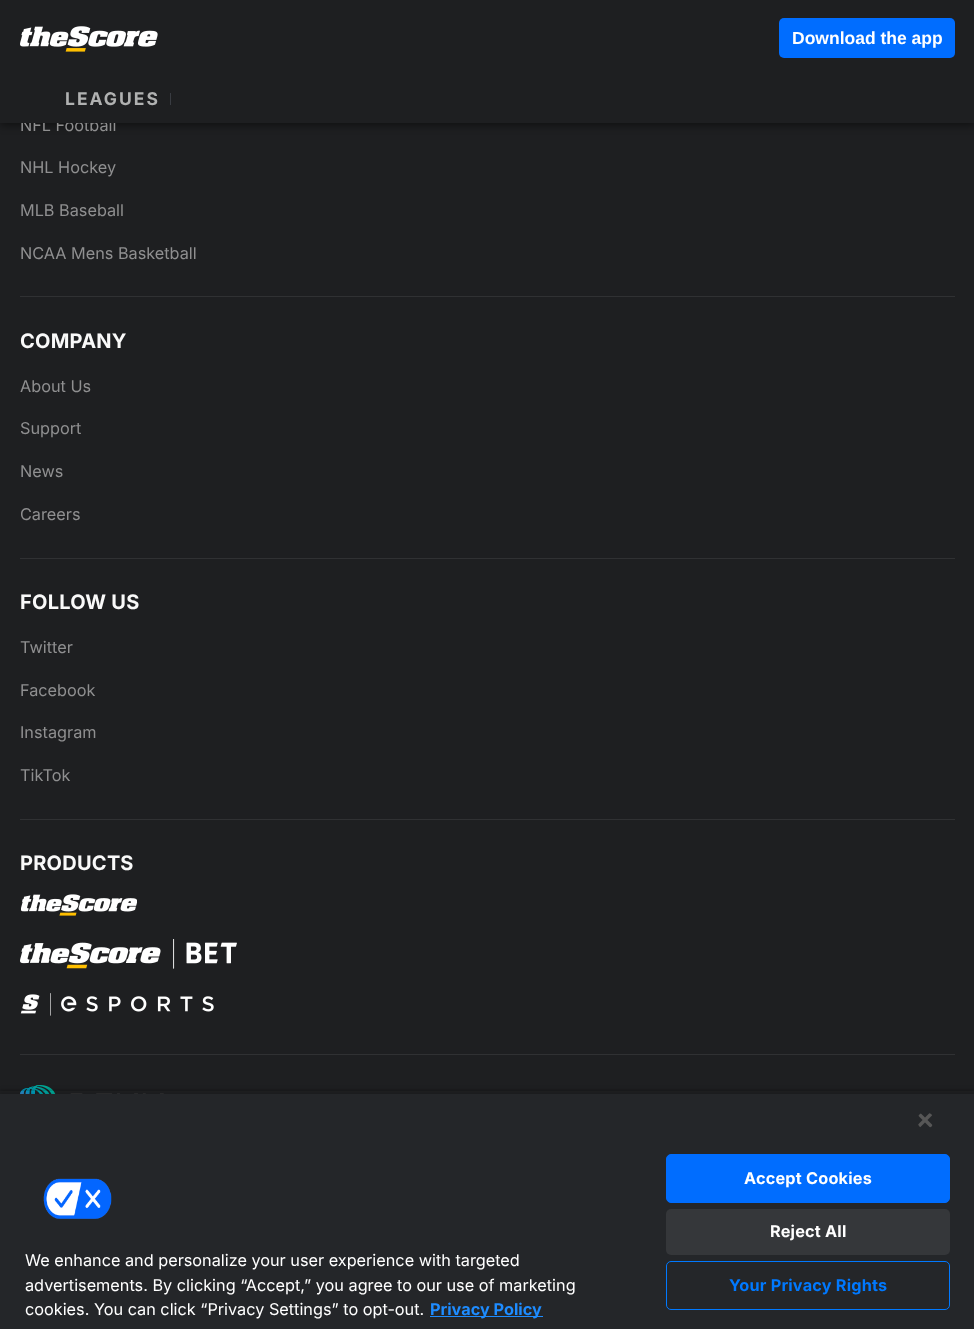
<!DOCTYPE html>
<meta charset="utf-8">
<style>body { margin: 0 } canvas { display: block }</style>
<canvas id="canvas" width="974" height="1329"></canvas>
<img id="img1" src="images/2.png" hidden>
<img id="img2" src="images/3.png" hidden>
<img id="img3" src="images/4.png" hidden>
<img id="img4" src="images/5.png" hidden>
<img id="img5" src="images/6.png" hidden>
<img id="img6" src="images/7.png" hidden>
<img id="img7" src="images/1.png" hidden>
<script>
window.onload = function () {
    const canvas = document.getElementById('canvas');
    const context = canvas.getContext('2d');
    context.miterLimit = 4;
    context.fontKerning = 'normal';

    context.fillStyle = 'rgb(30, 31, 33)';
    context.fillRect(0, 0, 974, 1329);
    context.fillStyle = 'rgba(0, 0, 0, 0.5)';
    context.filter = 'blur(4px)';
    context.beginPath();
    context.rect(0, 3, 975, 122);
    context.fill();
    context.filter = 'none';
    context.fillStyle = 'rgb(48, 49, 51)';
    context.fillRect(20, 296, 935, 1);
    context.fillRect(20, 558, 935, 1);
    context.fillRect(20, 819, 935, 1);
    context.fillRect(20, 1054, 935, 1);
    context.drawImage(document.getElementById('img1'), 21, 894, 116, 22);
    context.drawImage(document.getElementById('img2'), 20, 939, 217, 30);
    context.drawImage(document.getElementById('img3'), 20, 993, 194, 23);
    context.drawImage(document.getElementById('img4'), 20, 1085, 144, 9);
    context.save();
    context.beginPath();
    context.moveTo(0, 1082);
    context.lineTo(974, 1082);
    context.lineTo(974, 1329);
    context.lineTo(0, 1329);
    context.closePath();
    context.moveTo(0, 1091);
    context.lineTo(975, 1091);
    context.lineTo(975, 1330);
    context.lineTo(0, 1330);
    context.closePath();
    context.clip('evenodd');
    context.fillStyle = 'rgba(0, 0, 0, 0.35)';
    context.filter = 'blur(2.5px)';
    context.beginPath();
    context.rect(0, 1091, 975, 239);
    context.fill();
    context.filter = 'none';
    context.restore();
    context.fillStyle = 'rgba(0, 0, 0, 0.2)';
    context.filter = 'blur(2.5px)';
    context.beginPath();
    context.rect(0, 1094, 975, 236);
    context.fill();
    context.filter = 'none';
    context.fillStyle = 'rgb(36, 38, 41)';
    context.fillRect(0, 1094, 974, 235);
    context.drawImage(document.getElementById('img5'), 918, 1113, 15, 15);
    context.drawImage(document.getElementById('img6'), 43, 1178, 69, 41);
    context.fillStyle = 'rgb(30, 140, 255)';
    context.fillRect(430, 1316, 113, 1);
    context.fillStyle = 'rgb(0, 109, 255)';
    context.beginPath();
    context.roundRect(666.5, 1154.5, 283, 48, 4.5);
    context.fill();
    context.strokeStyle = 'rgb(0, 109, 255)';
    context.stroke();
    context.fillStyle = 'rgb(53, 55, 58)';
    context.beginPath();
    context.roundRect(666, 1209, 284, 46, 5);
    context.fill();
    context.beginPath();
    context.roundRect(666.5, 1261.5, 283, 48, 4.5);
    context.strokeStyle = 'rgb(0, 121, 255)';
    context.stroke();
    context.font = '16.25px Inter';
    context.fillStyle = 'rgb(143, 143, 144)';
    context.fillText('NFL Football', 20, 131);
    context.fillStyle = 'rgb(30, 31, 33)';
    context.fillRect(0, 0, 974, 123);
    context.fillStyle = 'rgb(0, 109, 255)';
    context.beginPath();
    context.roundRect(779, 18, 176, 40, 5);
    context.fill();
    context.font = 'bold 17.5px Liberation Sans';
    context.fillStyle = 'rgb(255, 255, 255)';
    context.fillText('Download the app', 792, 44);
    context.drawImage(document.getElementById('img7'), 20, 26, 138, 26);
    context.fillStyle = 'rgb(57, 60, 66)';
    context.fillRect(170, 93, 1, 12);
    context.letterSpacing = '2px';
    context.font = 'bold 17.5px Inter';
    context.fillStyle = 'rgb(176, 177, 177)';
    context.fillText('LEAGUES', 65, 105);
    context.letterSpacing = '0px';
    context.font = '16.25px Inter';
    context.fillStyle = 'rgb(143, 143, 144)';
    context.fillText('NHL Hockey', 20, 173);
    context.fillText('MLB Baseball', 20, 216);
    context.fillText('NCAA Mens Basketball', 20, 259);
    context.letterSpacing = '0.25px';
    context.font = 'bold 20px Inter';
    context.fillStyle = 'rgb(249, 249, 249)';
    context.fillText('COMPANY', 20, 348);
    context.letterSpacing = '0px';
    context.font = '16.25px Inter';
    context.fillStyle = 'rgb(143, 143, 144)';
    context.fillText('About Us', 20, 392);
    context.fillText('Support', 20, 434);
    context.fillText('News', 20, 477);
    context.fillText('Careers', 20, 520);
    context.letterSpacing = '0.25px';
    context.font = 'bold 20px Inter';
    context.fillStyle = 'rgb(249, 249, 249)';
    context.fillText('FOLLOW US', 20, 609);
    context.letterSpacing = '0px';
    context.font = '16.25px Inter';
    context.fillStyle = 'rgb(143, 143, 144)';
    context.fillText('Twitter', 20, 653);
    context.fillText('Facebook', 20, 696);
    context.fillText('Instagram', 20, 738);
    context.fillText('TikTok', 20, 781);
    context.letterSpacing = '0.25px';
    context.font = 'bold 20px Inter';
    context.fillStyle = 'rgb(249, 249, 249)';
    context.fillText('PRODUCTS', 20, 870);
    context.letterSpacing = '0px';
    context.font = '16.25px Inter';
    context.fillStyle = 'rgb(255, 255, 255)';
    context.fillText('We enhance and personalize your user experience with targeted', 25, 1266);
    context.fillText('advertisements. By clicking “Accept,” you agree to our use of marketing', 25, 1291);
    context.fillText('cookies. You can click “Privacy Settings” to opt-out.', 25, 1315);
    context.font = 'bold 16.25px Inter';
    context.fillStyle = 'rgb(30, 140, 255)';
    context.fillText('Privacy Policy', 430, 1315);
    context.letterSpacing = '0.2px';
    context.fillStyle = 'rgb(255, 255, 255)';
    context.fillText('Accept Cookies', 744, 1184);
    context.fillText('Reject All', 770, 1237);
    context.fillStyle = 'rgb(0, 121, 255)';
    context.fillText('Your Privacy Rights', 729, 1291);
};
</script>
